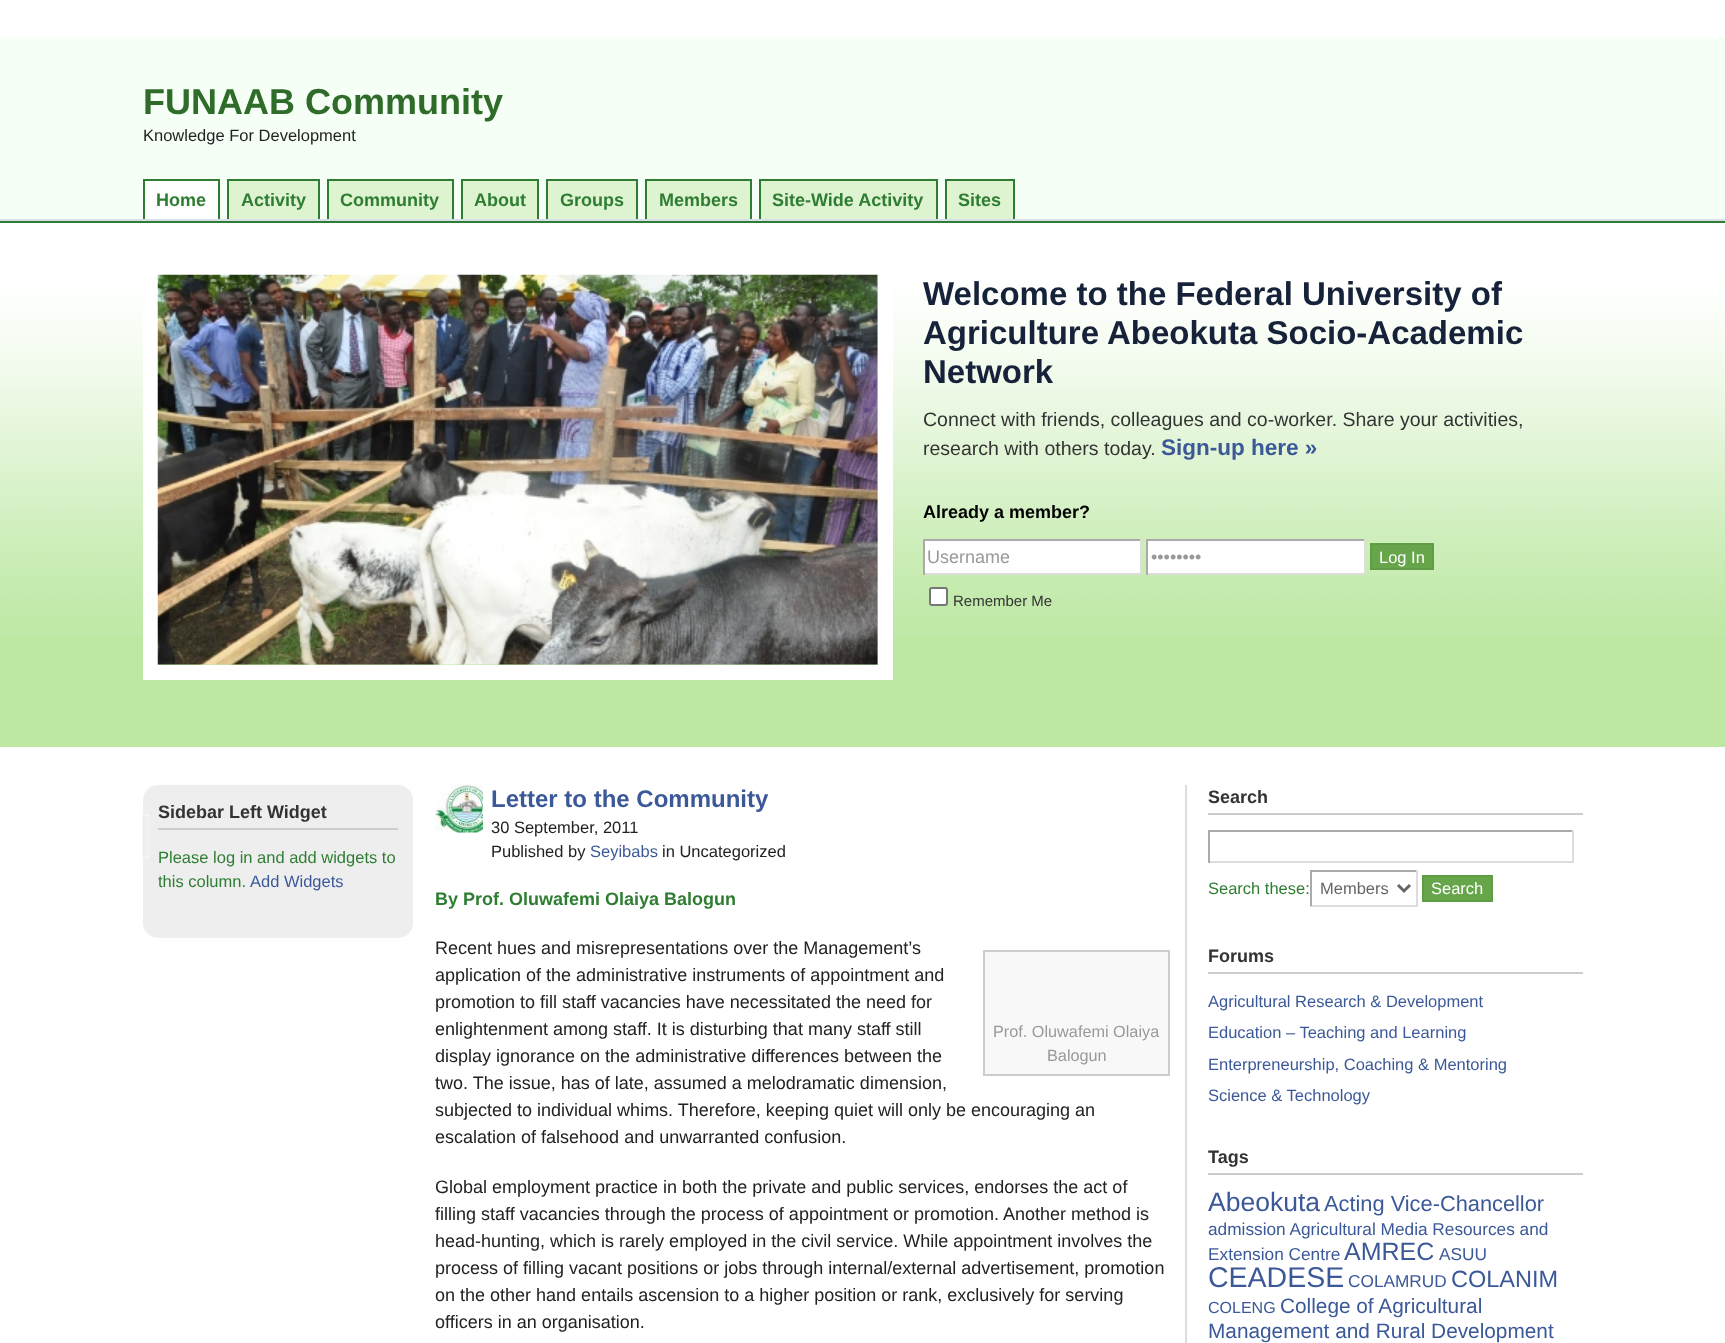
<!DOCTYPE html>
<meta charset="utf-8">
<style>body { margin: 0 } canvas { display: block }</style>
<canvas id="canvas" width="1725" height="1343"></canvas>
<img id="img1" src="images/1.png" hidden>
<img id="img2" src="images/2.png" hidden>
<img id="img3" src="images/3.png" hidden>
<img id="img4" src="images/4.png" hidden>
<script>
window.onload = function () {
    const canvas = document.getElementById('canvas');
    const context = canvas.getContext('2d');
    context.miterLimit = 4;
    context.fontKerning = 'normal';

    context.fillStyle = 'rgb(255, 255, 255)';
    context.fillRect(0, 0, 1725, 1343);
    context.fillStyle = 'rgb(245, 255, 245)';
    context.fillRect(0, 38, 1725, 181);
    context.fillStyle = 'rgb(216, 223, 234)';
    context.fillRect(0, 219, 1725, 2);
    context.fillStyle = 'rgb(255, 255, 255)';
    context.fillRect(145, 181, 73, 38);
    context.fillStyle = 'rgb(46, 125, 51)';
    context.fillRect(143, 179, 76, 2);
    context.fillRect(218, 179, 2, 40);
    context.fillRect(143, 179, 2, 40);
    context.fillStyle = 'rgb(222, 244, 208)';
    context.fillRect(229, 181, 89, 38);
    context.fillStyle = 'rgb(46, 125, 51)';
    context.fillRect(227, 179, 93, 2);
    context.fillRect(318, 179, 2, 40);
    context.fillRect(227, 179, 2, 40);
    context.fillStyle = 'rgb(222, 244, 208)';
    context.fillRect(329, 181, 123, 38);
    context.fillStyle = 'rgb(46, 125, 51)';
    context.fillRect(327, 179, 126, 2);
    context.fillRect(452, 179, 2, 40);
    context.fillRect(327, 179, 2, 40);
    context.fillStyle = 'rgb(222, 244, 208)';
    context.fillRect(463, 181, 74, 38);
    context.fillStyle = 'rgb(46, 125, 51)';
    context.fillRect(461, 179, 78, 2);
    context.fillRect(537, 179, 2, 40);
    context.fillRect(461, 179, 2, 40);
    context.fillStyle = 'rgb(222, 244, 208)';
    context.fillRect(548, 181, 88, 38);
    context.fillStyle = 'rgb(46, 125, 51)';
    context.fillRect(546, 179, 92, 2);
    context.fillRect(636, 179, 2, 40);
    context.fillRect(546, 179, 2, 40);
    context.fillStyle = 'rgb(222, 244, 208)';
    context.fillRect(647, 181, 103, 38);
    context.fillStyle = 'rgb(46, 125, 51)';
    context.fillRect(645, 179, 107, 2);
    context.fillRect(750, 179, 2, 40);
    context.fillRect(645, 179, 2, 40);
    context.fillStyle = 'rgb(222, 244, 208)';
    context.fillRect(761, 181, 175, 38);
    context.fillStyle = 'rgb(46, 125, 51)';
    context.fillRect(759, 179, 179, 2);
    context.fillRect(936, 179, 2, 40);
    context.fillRect(759, 179, 2, 40);
    context.fillStyle = 'rgb(222, 244, 208)';
    context.fillRect(947, 181, 66, 38);
    context.fillStyle = 'rgb(46, 125, 51)';
    context.fillRect(945, 179, 69, 2);
    context.fillRect(1013, 179, 2, 40);
    context.fillRect(945, 179, 2, 40);
    context.fillStyle = 'rgb(188, 232, 162)';
    context.fillRect(0, 275, 1725, 472);
    context.drawImage(document.getElementById('img1'), 0, 223, 1725, 414);
    context.fillStyle = 'rgb(46, 125, 51)';
    context.fillRect(0, 221, 1725, 2);
    context.strokeStyle = 'rgb(255, 255, 255)';
    context.lineWidth = 15;
    context.strokeRect(150.5, 267.5, 735, 405);
    context.drawImage(document.getElementById('img2'), 157, 274, 721, 391);
    context.fillStyle = 'rgb(255, 255, 255)';
    context.fillRect(925, 541, 215, 32);
    context.fillStyle = 'rgb(170, 170, 170)';
    context.fillRect(923, 539, 219, 2);
    context.fillStyle = 'rgb(221, 221, 221)';
    context.fillRect(1140, 539, 2, 36);
    context.fillRect(923, 573, 219, 2);
    context.fillStyle = 'rgb(170, 170, 170)';
    context.fillRect(923, 539, 2, 36);
    context.fillStyle = 'rgb(255, 255, 255)';
    context.fillRect(1148, 541, 216, 32);
    context.fillStyle = 'rgb(170, 170, 170)';
    context.fillRect(1146, 539, 219, 2);
    context.fillStyle = 'rgb(221, 221, 221)';
    context.fillRect(1364, 539, 2, 36);
    context.fillRect(1146, 573, 219, 2);
    context.fillStyle = 'rgb(170, 170, 170)';
    context.fillRect(1146, 539, 2, 36);
    context.fillStyle = 'rgb(103, 165, 75)';
    context.beginPath();
    context.rect(1371, 544, 62, 25);
    context.fill();
    context.strokeStyle = 'rgb(96, 155, 70)';
    context.lineWidth = 2;
    context.stroke();
    context.fillStyle = 'rgb(255, 255, 255)';
    context.beginPath();
    context.roundRect(930, 588, 17, 17, 2);
    context.fill();
    context.strokeStyle = 'rgb(118, 118, 118)';
    context.stroke();
    context.fillStyle = 'rgb(221, 221, 221)';
    context.fillRect(1185, 785, 2, 558);
    context.fillStyle = 'rgb(238, 238, 238)';
    context.beginPath();
    context.roundRect(143, 785, 270, 153, 15);
    context.fill();
    context.drawImage(document.getElementById('img3'), 142, 814, 7, 44);
    context.fillStyle = 'rgb(204, 204, 204)';
    context.fillRect(158, 828, 240, 2);
    context.drawImage(document.getElementById('img4'), 435, 784, 48, 49);
    context.fillStyle = 'rgb(248, 248, 248)';
    context.beginPath();
    context.rect(984, 951, 185, 124);
    context.fill();
    context.strokeStyle = 'rgb(204, 204, 204)';
    context.stroke();
    context.fillStyle = 'rgb(204, 204, 204)';
    context.fillRect(1208, 813, 375, 2);
    context.fillStyle = 'rgb(170, 170, 170)';
    context.fillRect(1208, 830, 366, 2);
    context.fillStyle = 'rgb(221, 221, 221)';
    context.fillRect(1572, 830, 2, 33);
    context.fillRect(1208, 861, 366, 2);
    context.fillStyle = 'rgb(170, 170, 170)';
    context.fillRect(1208, 830, 2, 33);
    context.fillRect(1310, 870, 108, 2);
    context.fillStyle = 'rgb(221, 221, 221)';
    context.fillRect(1416, 870, 2, 36);
    context.fillRect(1310, 905, 108, 2);
    context.fillStyle = 'rgb(170, 170, 170)';
    context.fillRect(1310, 870, 2, 36);
    context.beginPath();
    context.moveTo(1398, 885);
    context.lineTo(1404, 891);
    context.lineTo(1410, 885);
    context.strokeStyle = 'rgb(102, 102, 102)';
    context.lineWidth = 3;
    context.stroke();
    context.fillStyle = 'rgb(103, 165, 75)';
    context.beginPath();
    context.rect(1423, 876, 69, 25);
    context.fill();
    context.strokeStyle = 'rgb(96, 155, 70)';
    context.lineWidth = 2;
    context.stroke();
    context.fillStyle = 'rgb(204, 204, 204)';
    context.fillRect(1208, 972, 375, 2);
    context.fillRect(1208, 1173, 375, 2);
    context.font = 'bold 36px Liberation Sans';
    context.fillStyle = 'rgb(47, 107, 41)';
    context.fillText('FUNAAB Community', 143, 114);
    context.font = '16.5px Liberation Sans';
    context.fillStyle = 'rgb(34, 34, 34)';
    context.fillText('Knowledge For Development', 143, 141);
    context.font = 'bold 18px Liberation Sans';
    context.fillStyle = 'rgb(46, 125, 51)';
    context.fillText('Home', 156, 206);
    context.fillText('Activity', 241, 206);
    context.fillText('Community', 340, 206);
    context.fillText('About', 474, 206);
    context.fillText('Groups', 560, 206);
    context.fillText('Members', 659, 206);
    context.fillText('Site-Wide Activity', 772, 206);
    context.fillText('Sites', 958, 206);
    context.font = 'bold 33px Liberation Sans';
    context.fillStyle = 'rgb(22, 34, 58)';
    context.fillText('Welcome to the Federal University of', 923, 305);
    context.fillText('Agriculture Abeokuta Socio-Academic', 923, 344);
    context.fillText('Network', 923, 383);
    context.font = '19.5px Liberation Sans';
    context.fillStyle = 'rgb(51, 51, 51)';
    context.fillText('Connect with friends, colleagues and co-worker. Share your activities,', 923, 426);
    context.fillText('research with others today.', 923, 455);
    context.font = 'bold 22.5px Liberation Sans';
    context.fillStyle = 'rgb(59, 89, 152)';
    context.fillText('Sign-up here »', 1161, 455);
    context.font = 'bold 18px Liberation Sans';
    context.fillStyle = 'rgb(0, 0, 0)';
    context.fillText('Already a member?', 923, 518);
    context.font = '18px Liberation Sans';
    context.fillStyle = 'rgb(153, 153, 153)';
    context.fillText('Username', 927, 563);
    context.fillText('••••••••', 1151, 563);
    context.font = '16.5px Liberation Sans';
    context.fillStyle = 'rgb(255, 255, 255)';
    context.fillText('Log In', 1379, 563);
    context.font = '15px Liberation Sans';
    context.fillStyle = 'rgb(51, 51, 51)';
    context.fillText('Remember Me', 953, 606);
    context.font = 'bold 18px Liberation Sans';
    context.fillText('Sidebar Left Widget', 158, 818);
    context.font = '16.5px Liberation Sans';
    context.fillStyle = 'rgb(46, 125, 51)';
    context.fillText('Please log in and add widgets to', 158, 863);
    context.fillText('this column.', 158, 887);
    context.fillStyle = 'rgb(59, 89, 152)';
    context.fillText('Add Widgets', 250, 887);
    context.font = 'bold 24px Liberation Sans';
    context.fillText('Letter to the Community', 491, 807);
    context.font = '16.5px Liberation Sans';
    context.fillStyle = 'rgb(34, 34, 34)';
    context.fillText('30 September, 2011', 491, 833);
    context.fillText('Published by', 491, 857);
    context.fillStyle = 'rgb(59, 89, 152)';
    context.fillText('Seyibabs', 590, 857);
    context.fillStyle = 'rgb(34, 34, 34)';
    context.fillText('in Uncategorized', 662, 857);
    context.font = 'bold 18px Liberation Sans';
    context.fillStyle = 'rgb(46, 125, 51)';
    context.fillText('By Prof. Oluwafemi Olaiya Balogun', 435, 905);
    context.font = '18px Liberation Sans';
    context.fillStyle = 'rgb(34, 34, 34)';
    context.fillText('Recent hues and misrepresentations over the Management’s', 435, 954);
    context.fillText('application of the administrative instruments of appointment and', 435, 981);
    context.fillText('promotion to fill staff vacancies have necessitated the need for', 435, 1008);
    context.fillText('enlightenment among staff. It is disturbing that many staff still', 435, 1035);
    context.fillText('display ignorance on the administrative differences between the', 435, 1062);
    context.fillText('two. The issue, has of late, assumed a melodramatic dimension,', 435, 1089);
    context.fillText('subjected to individual whims. Therefore, keeping quiet will only be encouraging an', 435, 1116);
    context.fillText('escalation of falsehood and unwarranted confusion.', 435, 1143);
    context.font = '16.25px Liberation Sans';
    context.fillStyle = 'rgb(153, 153, 153)';
    context.fillText('Prof. Oluwafemi Olaiya', 993, 1037);
    context.fillText('Balogun', 1047, 1061);
    context.font = '18px Liberation Sans';
    context.fillStyle = 'rgb(34, 34, 34)';
    context.fillText('Global employment practice in both the private and public services, endorses the act of', 435, 1193);
    context.fillText('filling staff vacancies through the process of appointment or promotion. Another method is', 435, 1220);
    context.fillText('head-hunting, which is rarely employed in the civil service. While appointment involves the', 435, 1247);
    context.fillText('process of filling vacant positions or jobs through internal/external advertisement, promotion', 435, 1274);
    context.fillText('on the other hand entails ascension to a higher position or rank, exclusively for serving', 435, 1301);
    context.fillText('officers in an organisation.', 435, 1328);
    context.font = 'bold 18px Liberation Sans';
    context.fillStyle = 'rgb(51, 51, 51)';
    context.fillText('Search', 1208, 803);
    context.font = '16.5px Liberation Sans';
    context.fillStyle = 'rgb(46, 125, 51)';
    context.fillText('Search these:', 1208, 894);
    context.fillStyle = 'rgb(102, 102, 102)';
    context.fillText('Members', 1320, 894);
    context.fillStyle = 'rgb(255, 255, 255)';
    context.fillText('Search', 1431, 894);
    context.font = 'bold 18px Liberation Sans';
    context.fillStyle = 'rgb(51, 51, 51)';
    context.fillText('Forums', 1208, 962);
    context.font = '16.5px Liberation Sans';
    context.fillStyle = 'rgb(59, 89, 152)';
    context.fillText('Agricultural Research & Development', 1208, 1007);
    context.fillText('Education – Teaching and Learning', 1208, 1038);
    context.fillText('Enterpreneurship, Coaching & Mentoring', 1208, 1070);
    context.fillText('Science & Technology', 1208, 1101);
    context.save();
    context.beginPath();
    context.rect(1208, 1145, 375, 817);
    context.clip();
    context.font = 'bold 18px Liberation Sans';
    context.fillStyle = 'rgb(51, 51, 51)';
    context.fillText('Tags', 1208, 1163);
    context.restore();
    context.font = '26.5px Liberation Sans';
    context.fillText('Abeokuta', 1208, 1211);
    context.font = '21.8px Liberation Sans';
    context.fillText('Acting Vice-Chancellor', 1324, 1211);
    context.font = '17.25px Liberation Sans';
    context.fillText('admission Agricultural Media Resources and', 1208, 1235);
    context.fillText('Extension Centre', 1208, 1260);
    context.font = '25px Liberation Sans';
    context.fillText('AMREC', 1344, 1260);
    context.font = '17.25px Liberation Sans';
    context.fillText('ASUU', 1439, 1260);
    context.font = '28.5px Liberation Sans';
    context.fillText('CEADESE', 1208, 1287);
    context.font = '17.25px Liberation Sans';
    context.fillText('COLAMRUD', 1348, 1287);
    context.font = '23.5px Liberation Sans';
    context.fillText('COLANIM', 1451, 1287);
    context.font = '16px Liberation Sans';
    context.fillText('COLENG', 1208, 1313);
    context.font = '20.8px Liberation Sans';
    context.fillText('College of Agricultural', 1280, 1313);
    context.fillText('Management and Rural Development', 1208, 1338);
};
</script>
